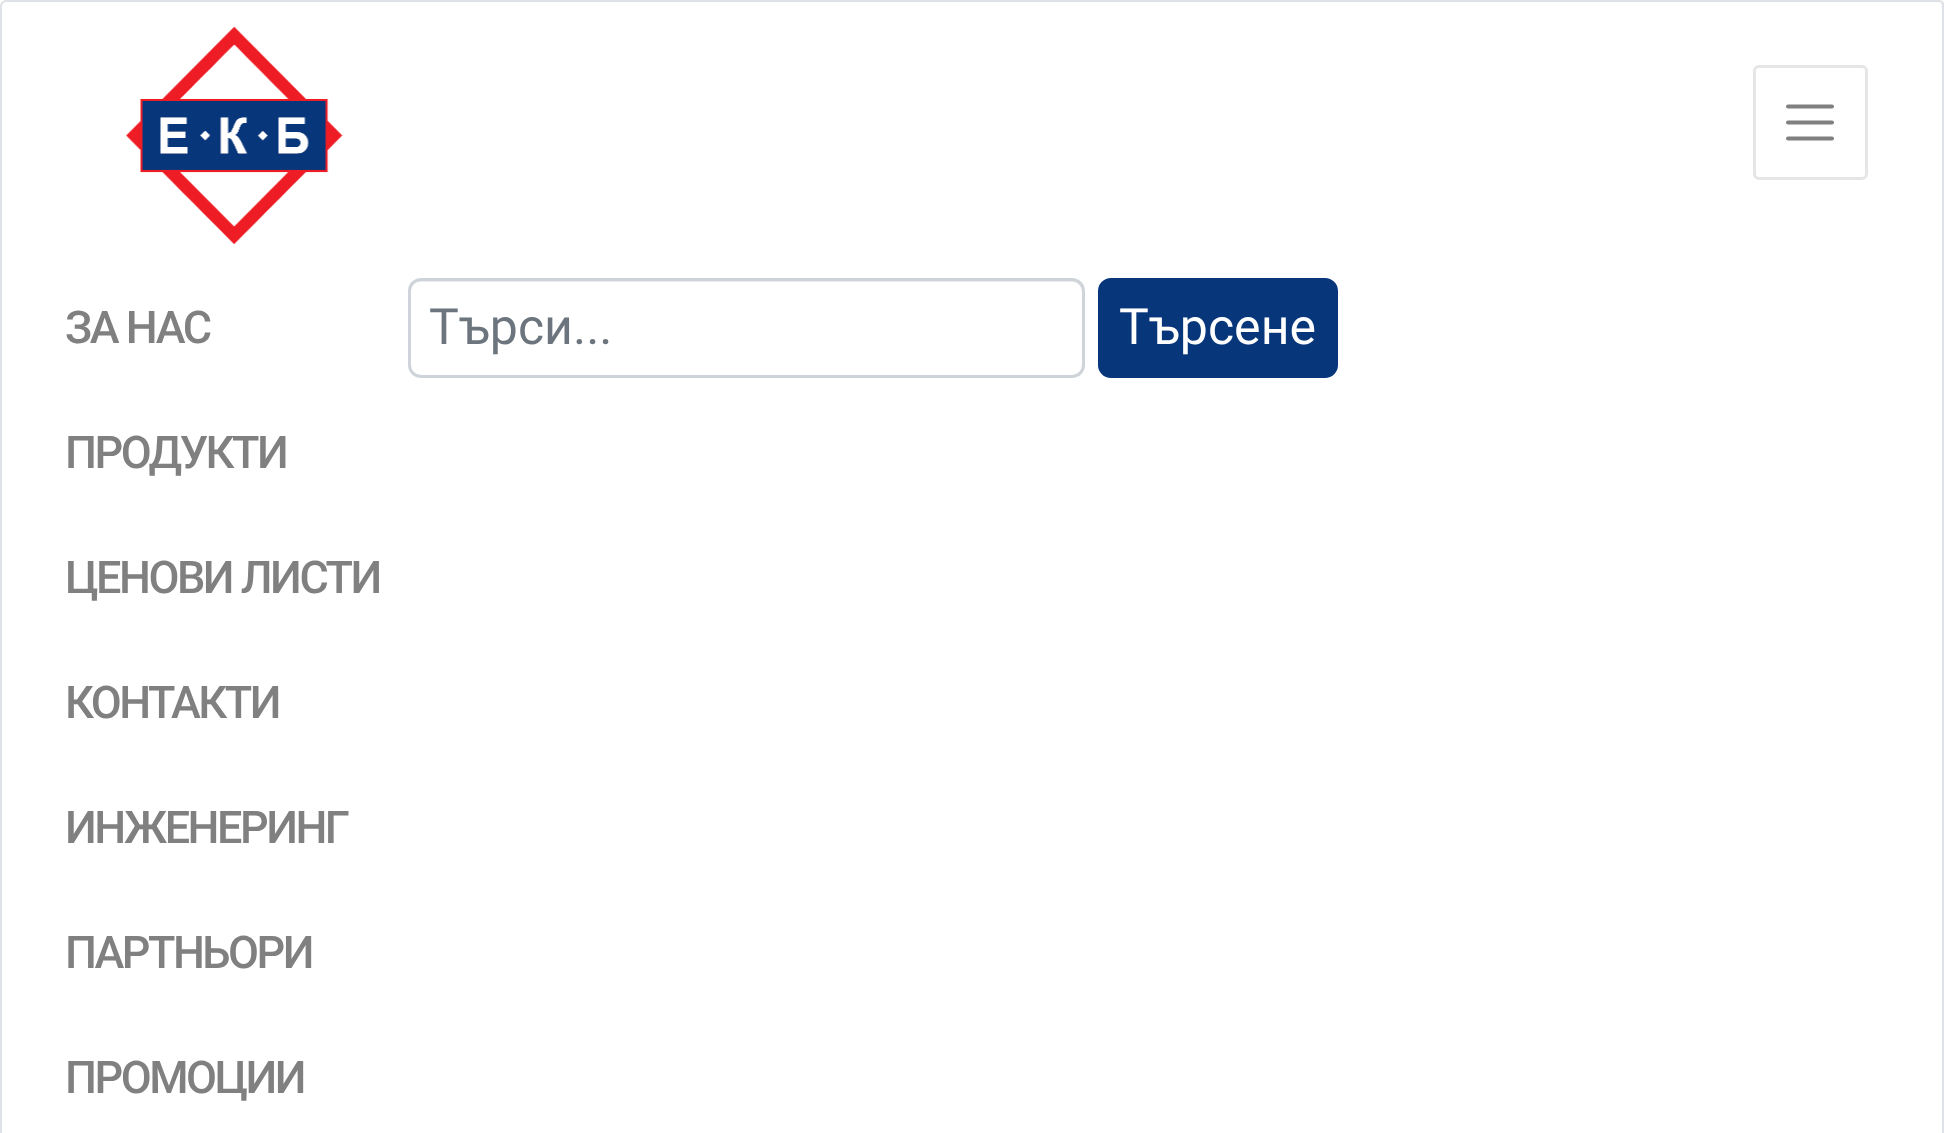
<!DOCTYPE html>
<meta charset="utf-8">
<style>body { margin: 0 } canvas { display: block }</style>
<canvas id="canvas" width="1944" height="1133"></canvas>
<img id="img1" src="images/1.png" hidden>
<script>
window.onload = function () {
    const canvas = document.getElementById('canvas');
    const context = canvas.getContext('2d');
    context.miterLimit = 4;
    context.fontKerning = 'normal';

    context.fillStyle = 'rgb(255, 255, 255)';
    context.fillRect(0, 0, 1944, 1133);
    context.fillStyle = 'rgb(222, 226, 230)';
    context.beginPath();
    context.moveTo(6, 0);
    context.lineTo(1939, 0);
    context.bezierCurveTo(1942, 0, 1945, 3, 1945, 6);
    context.lineTo(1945, 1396);
    context.bezierCurveTo(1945, 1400, 1942, 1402, 1939, 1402);
    context.lineTo(6, 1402);
    context.bezierCurveTo(3, 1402, 0, 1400, 0, 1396);
    context.lineTo(0, 6);
    context.bezierCurveTo(0, 3, 3, 0, 6, 0);
    context.closePath();
    context.moveTo(6, 2);
    context.lineTo(1939, 2);
    context.bezierCurveTo(1941, 2, 1942, 4, 1942, 6);
    context.lineTo(1942, 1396);
    context.bezierCurveTo(1942, 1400, 1941, 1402, 1939, 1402);
    context.lineTo(6, 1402);
    context.bezierCurveTo(4, 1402, 2, 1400, 2, 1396);
    context.lineTo(2, 6);
    context.bezierCurveTo(2, 4, 4, 2, 6, 2);
    context.closePath();
    context.fill('evenodd');
    context.drawImage(document.getElementById('img1'), 126, 27, 217, 217);
    context.beginPath();
    context.roundRect(1754.5, 66.5, 112, 112, 4.5);
    context.strokeStyle = 'rgb(230, 230, 230)';
    context.lineWidth = 3;
    context.stroke();
    context.beginPath();
    context.moveTo(1788, 106.5);
    context.lineTo(1832, 106.5);
    context.moveTo(1788, 122.5);
    context.lineTo(1832, 122.5);
    context.moveTo(1788, 138.5);
    context.lineTo(1832, 138.5);
    context.strokeStyle = 'rgb(128, 128, 128)';
    context.lineWidth = 4;
    context.lineCap = 'round';
    context.stroke();
    context.fillStyle = 'rgb(236, 236, 236)';
    context.beginPath();
    context.moveTo(420, 282);
    context.lineTo(1072, 282);
    context.bezierCurveTo(1078, 282, 1082, 287, 1082, 292);
    context.lineTo(1082, 370);
    context.bezierCurveTo(1083, 368, 1083, 367, 1083, 365);
    context.lineTo(1083, 290);
    context.bezierCurveTo(1083, 284, 1079, 280, 1073, 280);
    context.lineTo(420, 280);
    context.bezierCurveTo(414, 280, 410, 284, 410, 290);
    context.lineTo(410, 292);
    context.bezierCurveTo(410, 287, 414, 282, 420, 282);
    context.closePath();
    context.fill();
    context.beginPath();
    context.roundRect(409.5, 279.5, 674, 97, 11.5);
    context.strokeStyle = 'rgb(206, 212, 218)';
    context.lineWidth = 3;
    context.stroke();
    context.fillStyle = 'rgb(7, 54, 123)';
    context.beginPath();
    context.roundRect(1099.5, 279.5, 237, 97, 11.5);
    context.fill();
    context.strokeStyle = 'rgb(7, 54, 123)';
    context.stroke();
    context.letterSpacing = '-2.5px';
    context.font = '500 45px Roboto';
    context.fillStyle = 'rgb(128, 128, 128)';
    context.fillText('ЗА НАС', 65, 343);
    context.fillText('ПРОДУКТИ', 65, 468);
    context.fillText('ЦEНОВИ ЛИСТИ', 65, 593);
    context.fillText('КОНТАКТИ', 65, 718);
    context.fillText('ИНЖЕНЕРИНГ', 65, 843);
    context.fillText('ПАРТНЬОРИ', 65, 968);
    context.fillText('ПРОМОЦИИ', 65, 1093);
    context.letterSpacing = '0px';
    context.font = '50px Roboto';
    context.fillStyle = 'rgb(108, 117, 125)';
    context.fillText('Търси...', 429, 344);
    context.fillStyle = 'rgb(255, 255, 255)';
    context.fillText('Търсене', 1119, 344);
};
</script>
